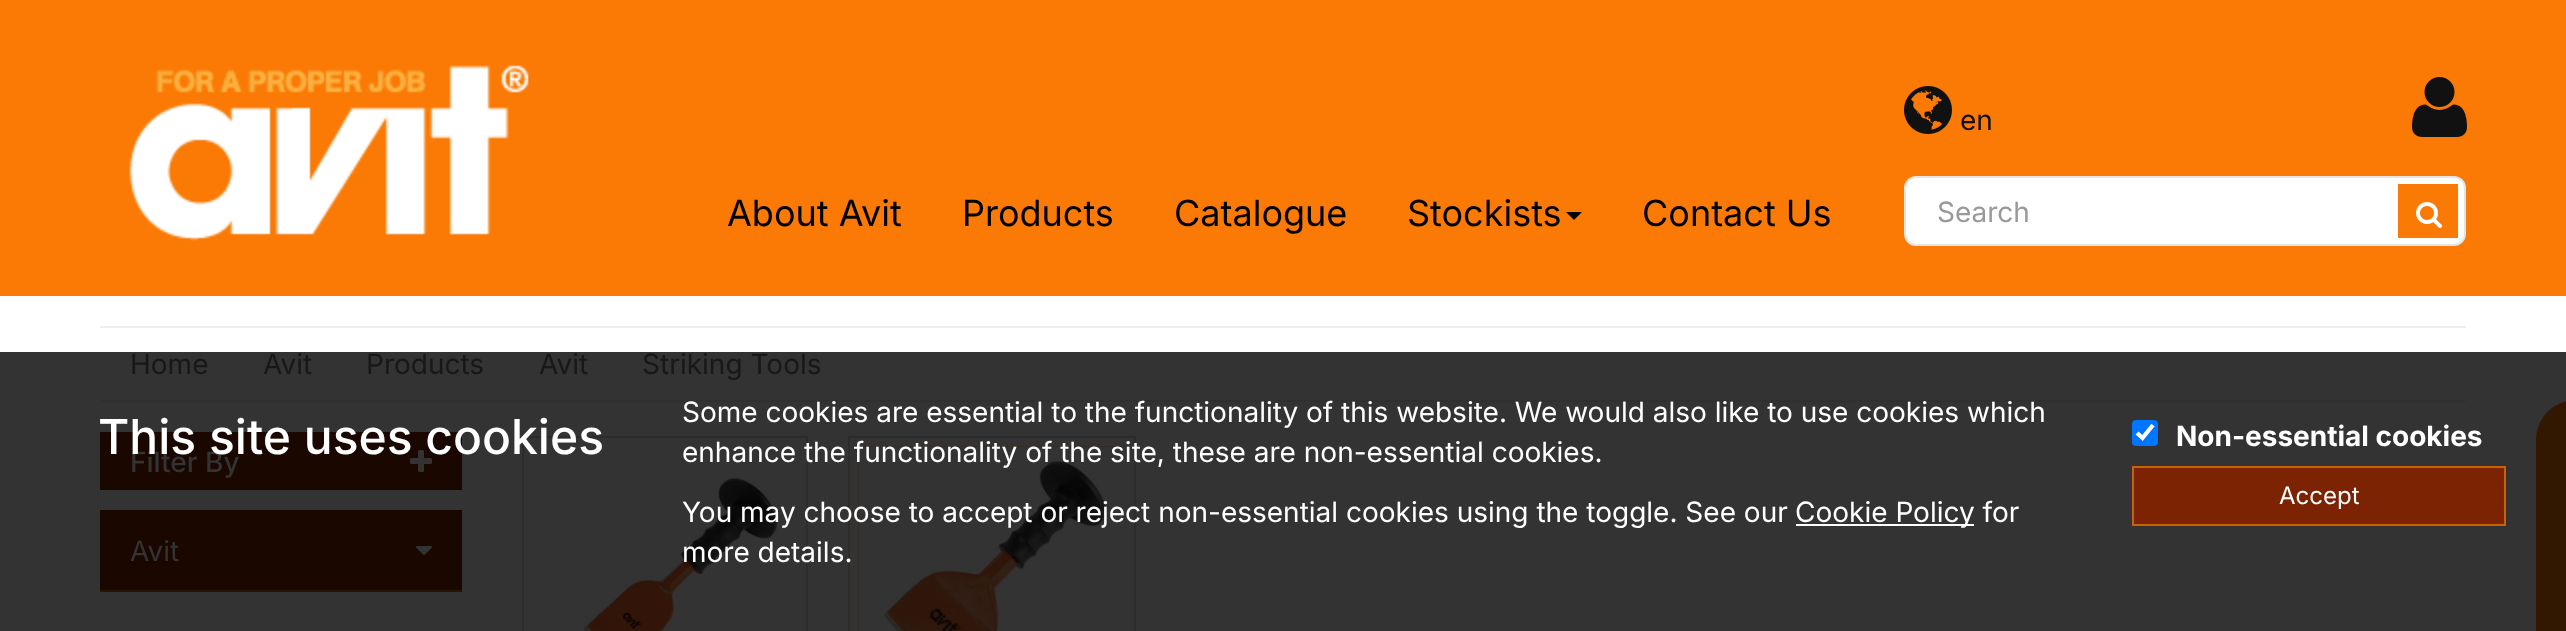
<!DOCTYPE html>
<meta charset="utf-8">
<style>body { margin: 0 } canvas { display: block }</style>
<canvas id="canvas" width="2566" height="631"></canvas>
<img id="img1" src="images/1.png" hidden>
<img id="img2" src="images/2.png" hidden>
<img id="img3" src="images/3.png" hidden>
<img id="img4" src="images/4.png" hidden>
<img id="img5" src="images/5.png" hidden>
<img id="img6" src="images/6.png" hidden>
<img id="img7" src="images/7.png" hidden>
<img id="img8" src="images/8.png" hidden>
<script>
window.onload = function () {
    const canvas = document.getElementById('canvas');
    const context = canvas.getContext('2d');
    context.miterLimit = 4;
    context.fontKerning = 'normal';

    context.fillStyle = 'rgb(250, 122, 5)';
    context.fillRect(0, 0, 2566, 631);
    context.drawImage(document.getElementById('img1'), 129, 65, 400, 176);
    context.fillStyle = 'rgb(0, 0, 0)';
    context.beginPath();
    context.moveTo(1566, 212);
    context.lineTo(1582, 212);
    context.lineTo(1574, 220);
    context.closePath();
    context.fill();
    context.drawImage(document.getElementById('img2'), 1904, 86, 48, 48);
    context.drawImage(document.getElementById('img3'), 2412, 77, 55, 60);
    context.fillStyle = 'rgb(255, 255, 255)';
    context.beginPath();
    context.roundRect(1905, 177, 560, 68, 11);
    context.fill();
    context.strokeStyle = 'rgb(228, 228, 228)';
    context.lineWidth = 2;
    context.stroke();
    context.fillStyle = 'rgb(250, 122, 5)';
    context.fillRect(2398, 184, 60, 54);
    context.drawImage(document.getElementById('img4'), 2416, 202, 26, 26);
    context.fillStyle = 'rgb(255, 255, 255)';
    context.fillRect(0, 296, 2566, 56);
    context.fillStyle = 'rgb(51, 51, 51)';
    context.fillRect(0, 352, 2566, 279);
    context.fillStyle = 'rgb(238, 238, 238)';
    context.fillRect(100, 326, 2366, 2);
    context.fillStyle = 'rgb(48, 48, 48)';
    context.fillRect(100, 400, 2366, 2);
    context.fillStyle = 'rgb(25, 7, 0)';
    context.fillRect(100, 432, 362, 58);
    context.drawImage(document.getElementById('img5'), 410, 450, 22, 22);
    context.fillRect(100, 510, 362, 80);
    context.fillStyle = 'rgb(40, 20, 1)';
    context.fillRect(100, 590, 362, 2);
    context.drawImage(document.getElementById('img6'), 416, 546, 16, 9);
    context.strokeStyle = 'rgb(44, 44, 44)';
    context.strokeRect(523, 437, 284, 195);
    context.drawImage(document.getElementById('img7'), 532, 446, 266, 185);
    context.strokeRect(849, 437, 286, 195);
    context.fillStyle = 'rgb(50, 24, 1)';
    context.fillRect(858, 446, 268, 185);
    context.drawImage(document.getElementById('img8'), 858, 446, 268, 185);
    context.fillStyle = 'rgb(255, 255, 255)';
    context.fillRect(1796, 524, 178, 2);
    context.fillStyle = 'rgb(0, 117, 255)';
    context.beginPath();
    context.roundRect(2132, 420, 26, 26, 4);
    context.fill();
    context.beginPath();
    context.moveTo(2137, 433);
    context.lineTo(2142.5, 438);
    context.lineTo(2153, 425);
    context.strokeStyle = 'rgb(255, 255, 255)';
    context.lineWidth = 4.2;
    context.stroke();
    context.fillStyle = 'rgb(123, 35, 2)';
    context.beginPath();
    context.rect(2133, 467, 372, 58);
    context.fill();
    context.strokeStyle = 'rgb(200, 98, 4)';
    context.lineWidth = 2;
    context.stroke();
    context.fillStyle = 'rgb(50, 24, 1)';
    context.beginPath();
    context.moveTo(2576, 400);
    context.lineTo(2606, 400);
    context.lineTo(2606, 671);
    context.lineTo(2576, 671);
    context.bezierCurveTo(2554, 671, 2536, 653, 2536, 631);
    context.lineTo(2536, 440);
    context.bezierCurveTo(2536, 418, 2554, 400, 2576, 400);
    context.closePath();
    context.fill();
    context.font = '36px Inter';
    context.fillStyle = 'rgb(0, 0, 0)';
    context.fillText('About Avit', 727, 226);
    context.fillText('Products', 962, 226);
    context.fillText('Catalogue', 1174, 226);
    context.fillText('Stockists', 1407, 226);
    context.fillText('Contact Us', 1642, 226);
    context.font = '28px Inter';
    context.fillStyle = 'rgb(17, 17, 18)';
    context.fillText('en', 1960, 130);
    context.fillStyle = 'rgb(153, 153, 153)';
    context.fillText('Search', 1937, 222);
    context.fillStyle = 'rgb(24, 24, 24)';
    context.fillText('Home', 130, 374);
    context.fillText('Avit', 263, 374);
    context.fillText('Products', 366, 374);
    context.fillText('Avit', 539, 374);
    context.fillText('Striking Tools', 642, 374);
    context.font = '500 28px Inter';
    context.fillStyle = 'rgb(51, 51, 51)';
    context.fillText('Filter By', 130, 472);
    context.font = '28px Inter';
    context.fillText('Avit', 130, 561);
    context.font = '500 48px Inter';
    context.fillStyle = 'rgb(255, 255, 255)';
    context.fillText('This site uses cookies', 98, 454);
    context.font = '28px Inter';
    context.fillText('Some cookies are essential to the functionality of this website. We would also like to use cookies which', 682, 422);
    context.fillText('enhance the functionality of the site, these are non-essential cookies.', 682, 462);
    context.fillText('You may choose to accept or reject non-essential cookies using the toggle. See our', 682, 522);
    context.fillText('Cookie Policy for', 1795, 522);
    context.fillText('more details.', 682, 562);
    context.font = 'bold 28px Inter';
    context.fillText('Non-essential cookies', 2176, 446);
    context.font = '24px Inter';
    context.fillText('Accept', 2279, 504);
};
</script>
